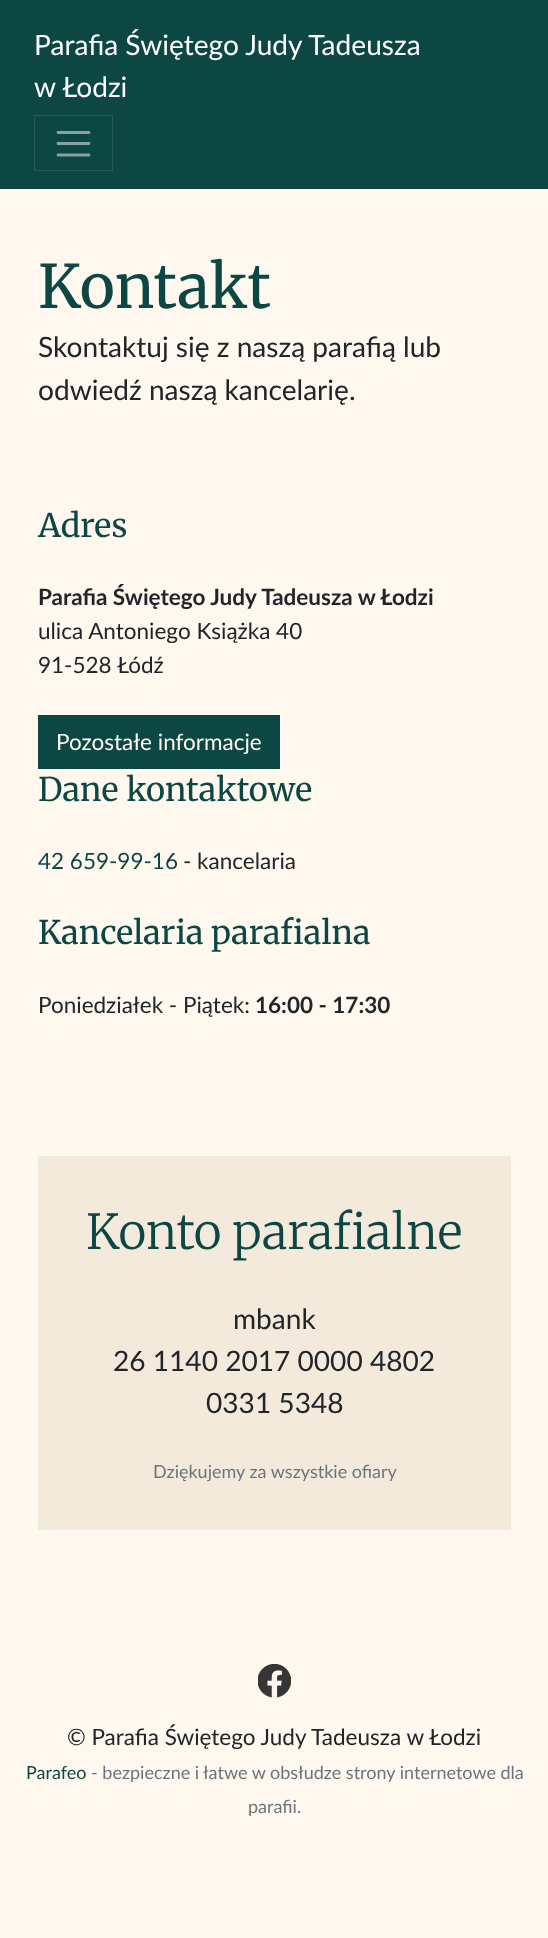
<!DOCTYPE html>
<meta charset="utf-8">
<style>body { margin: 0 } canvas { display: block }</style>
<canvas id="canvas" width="548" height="1938"></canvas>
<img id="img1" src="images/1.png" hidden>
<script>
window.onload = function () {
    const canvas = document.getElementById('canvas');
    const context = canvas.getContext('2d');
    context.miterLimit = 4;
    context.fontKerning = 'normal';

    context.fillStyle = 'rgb(254, 248, 238)';
    context.fillRect(0, 0, 548, 1938);
    context.fillStyle = 'rgb(13, 71, 68)';
    context.fillRect(0, 0, 548, 189);
    context.strokeStyle = 'rgb(37, 89, 87)';
    context.strokeRect(34.5, 115.5, 78, 55);
    context.beginPath();
    context.moveTo(58, 132.5);
    context.lineTo(89, 132.5);
    context.moveTo(58, 143.5);
    context.lineTo(89, 143.5);
    context.moveTo(58, 155);
    context.lineTo(89, 155);
    context.strokeStyle = 'rgb(134, 163, 162)';
    context.lineWidth = 2.8;
    context.lineCap = 'round';
    context.stroke();
    context.fillRect(38, 715, 242, 54);
    context.fillStyle = 'rgb(244, 234, 220)';
    context.fillRect(38, 1156, 473, 374);
    context.drawImage(document.getElementById('img1'), 258, 1664, 33, 34);
    context.font = '28.1px Lato';
    context.fillStyle = 'rgb(255, 255, 255)';
    context.fillText('Parafia Świętego Judy Tadeusza', 34, 55);
    context.fillText('w Łodzi', 34, 97);
    context.font = '60px Merriweather';
    context.fillStyle = 'rgb(13, 71, 68)';
    context.fillText('Kontakt', 38, 308);
    context.font = '28.1px Lato';
    context.fillStyle = 'rgb(33, 37, 41)';
    context.fillText('Skontaktuj się z naszą parafią lub', 38, 357);
    context.fillText('odwiedź naszą kancelarię.', 38, 400);
    context.font = '32.5px Merriweather';
    context.fillStyle = 'rgb(13, 71, 68)';
    context.fillText('Adres', 38, 537);
    context.font = 'bold 22.5px Lato';
    context.fillStyle = 'rgb(33, 37, 41)';
    context.fillText('Parafia Świętego Judy Tadeusza w Łodzi', 38, 605);
    context.font = '22.5px Lato';
    context.fillText('ulica Antoniego Książka 40', 38, 639);
    context.fillText('91-528 Łódź', 38, 673);
    context.fillStyle = 'rgb(254, 248, 238)';
    context.fillText('Pozostałe informacje', 56, 750);
    context.font = '32.5px Merriweather';
    context.fillStyle = 'rgb(13, 71, 68)';
    context.fillText('Dane kontaktowe', 38, 801);
    context.font = '22.5px Lato';
    context.fillText('42 659-99-16', 38, 869);
    context.fillStyle = 'rgb(33, 37, 41)';
    context.fillText('- kancelaria', 183, 869);
    context.font = '32.5px Merriweather';
    context.fillStyle = 'rgb(13, 71, 68)';
    context.fillText('Kancelaria parafialna', 38, 944);
    context.font = '22.5px Lato';
    context.fillStyle = 'rgb(33, 37, 41)';
    context.fillText('Poniedziałek - Piątek:', 38, 1013);
    context.font = 'bold 22.5px Lato';
    context.fillText('16:00 - 17:30', 255, 1013);
    context.font = '300 48px Merriweather';
    context.fillStyle = 'rgb(13, 71, 68)';
    context.fillText('Konto parafialne', 86, 1249);
    context.font = '28.1px Lato';
    context.fillStyle = 'rgb(33, 37, 41)';
    context.fillText('mbank', 233, 1329);
    context.fillText('26 1140 2017 0000 4802', 113, 1371);
    context.fillText('0331 5348', 206, 1413);
    context.font = '18px Lato';
    context.fillStyle = 'rgb(108, 117, 125)';
    context.fillText('Dziękujemy za wszystkie ofiary', 153, 1478);
    context.font = '22.5px Lato';
    context.fillStyle = 'rgb(33, 37, 41)';
    context.fillText('© Parafia Świętego Judy Tadeusza w Łodzi', 67, 1745);
    context.font = '18px Lato';
    context.fillStyle = 'rgb(13, 71, 68)';
    context.fillText('Parafeo', 26, 1779);
    context.fillStyle = 'rgb(108, 117, 125)';
    context.fillText('- bezpieczne i łatwe w obsłudze strony internetowe dla', 91, 1779);
    context.fillText('parafii.', 248, 1813);
};
</script>
